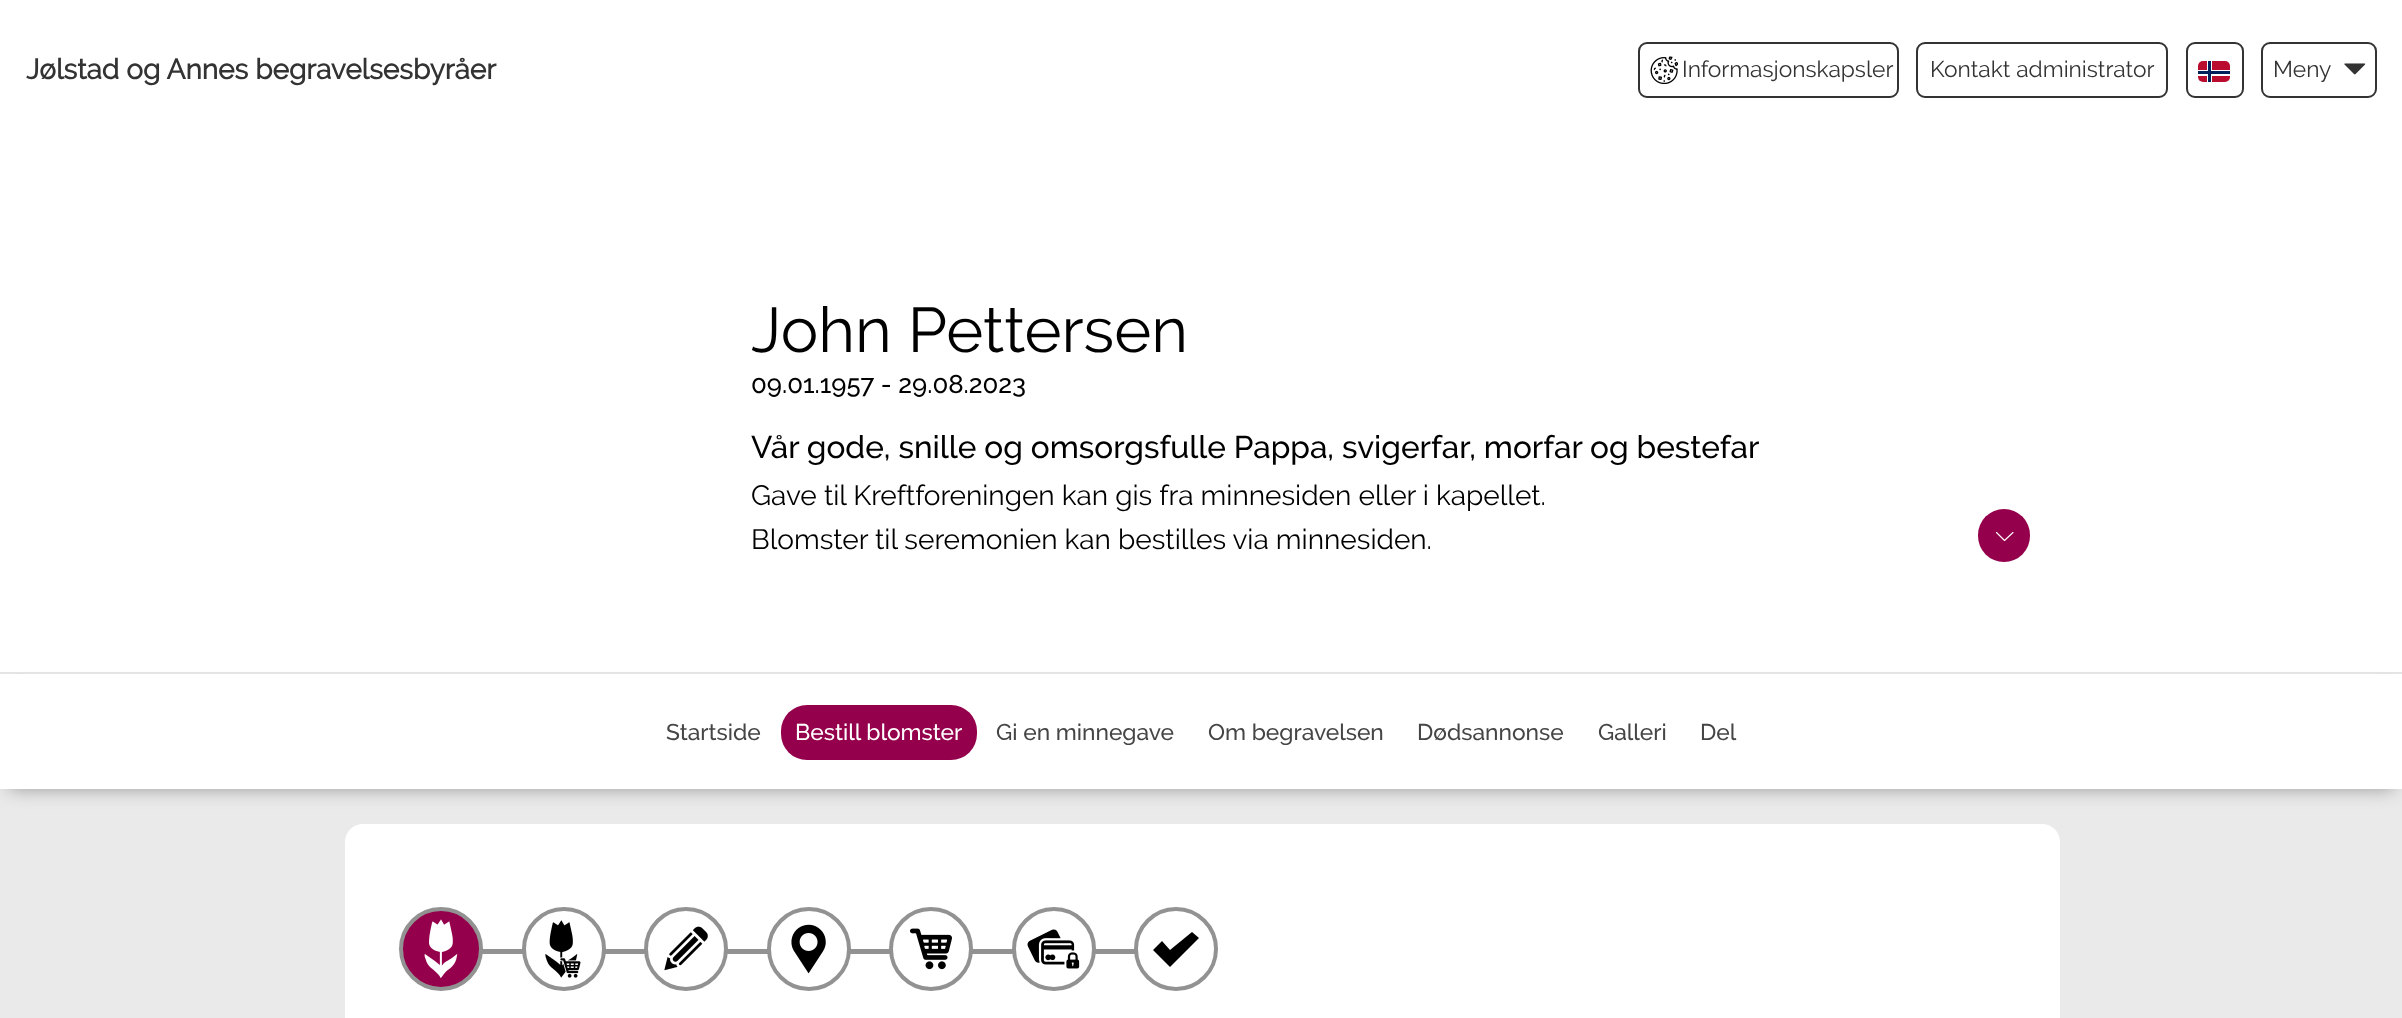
<!DOCTYPE html>
<meta charset="utf-8">
<style>body { margin: 0 } canvas { display: block }</style>
<canvas id="canvas" width="2402" height="1018"></canvas>
<img id="img1" src="images/1.png" hidden>
<img id="img2" src="images/2.png" hidden>
<img id="img3" src="images/3.png" hidden>
<img id="img4" src="images/4.png" hidden>
<img id="img5" src="images/5.png" hidden>
<img id="img6" src="images/6.png" hidden>
<img id="img7" src="images/7.png" hidden>
<img id="img8" src="images/8.png" hidden>
<script>
window.onload = function () {
    const canvas = document.getElementById('canvas');
    const context = canvas.getContext('2d');
    context.miterLimit = 4;
    context.fontKerning = 'normal';

    context.fillStyle = 'rgb(234, 234, 234)';
    context.fillRect(0, 0, 2402, 1018);
    context.fillStyle = 'rgb(255, 255, 255)';
    context.fillRect(0, 0, 2402, 672);
    context.beginPath();
    context.roundRect(1639, 43, 259, 54, 8);
    context.strokeStyle = 'rgb(51, 51, 51)';
    context.lineWidth = 2;
    context.stroke();
    context.drawImage(document.getElementById('img1'), 1650, 56, 28, 28);
    context.beginPath();
    context.roundRect(1917, 43, 250, 54, 8);
    context.stroke();
    context.beginPath();
    context.roundRect(2187, 43, 56, 54, 8);
    context.stroke();
    context.fillStyle = 'rgb(186, 12, 47)';
    context.beginPath();
    context.roundRect(2198, 61, 32, 21, 5);
    context.fill();
    context.fillStyle = 'rgb(255, 255, 255)';
    context.fillRect(2207, 61, 5, 21);
    context.fillRect(2198, 70, 32, 6);
    context.fillStyle = 'rgb(0, 32, 91)';
    context.fillRect(2208, 61, 3, 21);
    context.fillRect(2198, 71, 32, 3);
    context.beginPath();
    context.roundRect(2262, 43, 114, 54, 8);
    context.stroke();
    context.drawImage(document.getElementById('img2'), 2344, 63, 22, 12);
    context.fillStyle = 'rgb(229, 229, 229)';
    context.fillRect(0, 672, 2402, 2);
    context.fillStyle = 'rgb(149, 0, 77)';
    context.beginPath();
    context.roundRect(1978, 509, 52, 53, 26);
    context.fill();
    context.beginPath();
    context.moveTo(2013, 532.5);
    context.lineTo(2004.5, 540.5);
    context.lineTo(1996.5, 532.5);
    context.strokeStyle = 'rgb(255, 255, 255)';
    context.lineWidth = 1.1;
    context.lineCap = 'round';
    context.lineJoin = 'round';
    context.stroke();
    context.fillStyle = 'rgb(153, 153, 153)';
    context.filter = 'blur(9px)';
    context.beginPath();
    context.rect(9, 691, 2385, 98);
    context.fill();
    context.filter = 'none';
    context.fillStyle = 'rgb(255, 255, 255)';
    context.fillRect(0, 674, 2402, 115);
    context.fillStyle = 'rgb(149, 0, 77)';
    context.beginPath();
    context.roundRect(781, 705, 196, 55, 26);
    context.fill();
    context.fillStyle = 'rgb(255, 255, 255)';
    context.beginPath();
    context.roundRect(345, 824, 1715, 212, 18);
    context.fill();
    context.fillStyle = 'rgb(146, 146, 146)';
    context.fillRect(482, 949, 653, 5);
    context.fillStyle = 'rgb(149, 0, 77)';
    context.beginPath();
    context.arc(441, 949, 40, 0, 2 * Math.PI);
    context.fill();
    context.strokeStyle = 'rgb(146, 146, 146)';
    context.lineWidth = 4;
    context.stroke();
    context.drawImage(document.getElementById('img3'), 424, 919, 34, 59);
    context.fillStyle = 'rgb(255, 255, 255)';
    context.beginPath();
    context.arc(564, 949, 40, 0, 2 * Math.PI);
    context.fill();
    context.stroke();
    context.drawImage(document.getElementById('img4'), 545, 920, 36, 58);
    context.beginPath();
    context.arc(686, 949, 40, 0, 2 * Math.PI);
    context.fill();
    context.stroke();
    context.drawImage(document.getElementById('img5'), 664, 926, 44, 45);
    context.beginPath();
    context.arc(809, 949, 40, 0, 2 * Math.PI);
    context.fill();
    context.stroke();
    context.drawImage(document.getElementById('img6'), 791, 924, 35, 50);
    context.beginPath();
    context.arc(931, 949, 40, 0, 2 * Math.PI);
    context.fill();
    context.stroke();
    context.drawImage(document.getElementById('img7'), 910, 928, 42, 42);
    context.beginPath();
    context.arc(1054, 949, 40, 0, 2 * Math.PI);
    context.fill();
    context.stroke();
    context.drawImage(document.getElementById('img8'), 1027, 929, 53, 40);
    context.beginPath();
    context.arc(1176, 949, 40, 0, 2 * Math.PI);
    context.fill();
    context.stroke();
    context.fillStyle = 'rgb(0, 0, 0)';
    context.beginPath();
    context.moveTo(1170, 950);
    context.lineTo(1162, 941);
    context.lineTo(1153, 950);
    context.lineTo(1170, 967);
    context.lineTo(1199, 938);
    context.lineTo(1192, 932);
    context.closePath();
    context.fill();
    context.font = 'bold 28px Raleway';
    context.fillStyle = 'rgb(51, 51, 51)';
    context.fillText('Jølstad og Annes begravelsesbyråer', 26, 79);
    context.font = '22.75px Raleway';
    context.fillText('Informasjonskapsler', 1682, 77);
    context.fillText('Kontakt administrator', 1930, 77);
    context.fillText('Meny', 2273, 77);
    context.font = '63px Raleway';
    context.fillStyle = 'rgb(0, 0, 0)';
    context.fillText('John Pettersen', 751, 352);
    context.font = '500 25.75px Raleway';
    context.fillText('09.01.1957 - 29.08.2023', 751, 393);
    context.font = '500 31.5px Raleway';
    context.fillText('Vår gode, snille og omsorgsfulle Pappa, svigerfar, morfar og bestefar', 751, 458);
    context.font = '28px Raleway';
    context.fillText('Gave til Kreftforeningen kan gis fra minnesiden eller i kapellet.', 751, 505);
    context.fillText('Blomster til seremonien kan bestilles via minnesiden.', 751, 549);
    context.font = '500 22.75px Raleway';
    context.fillStyle = 'rgb(69, 69, 69)';
    context.fillText('Startside', 666, 740);
    context.fillStyle = 'rgb(255, 255, 255)';
    context.fillText('Bestill blomster', 795, 740);
    context.fillStyle = 'rgb(69, 69, 69)';
    context.fillText('Gi en minnegave', 996, 740);
    context.fillText('Om begravelsen', 1208, 740);
    context.fillText('Dødsannonse', 1417, 740);
    context.fillText('Galleri', 1598, 740);
    context.fillText('Del', 1700, 740);
};
</script>
